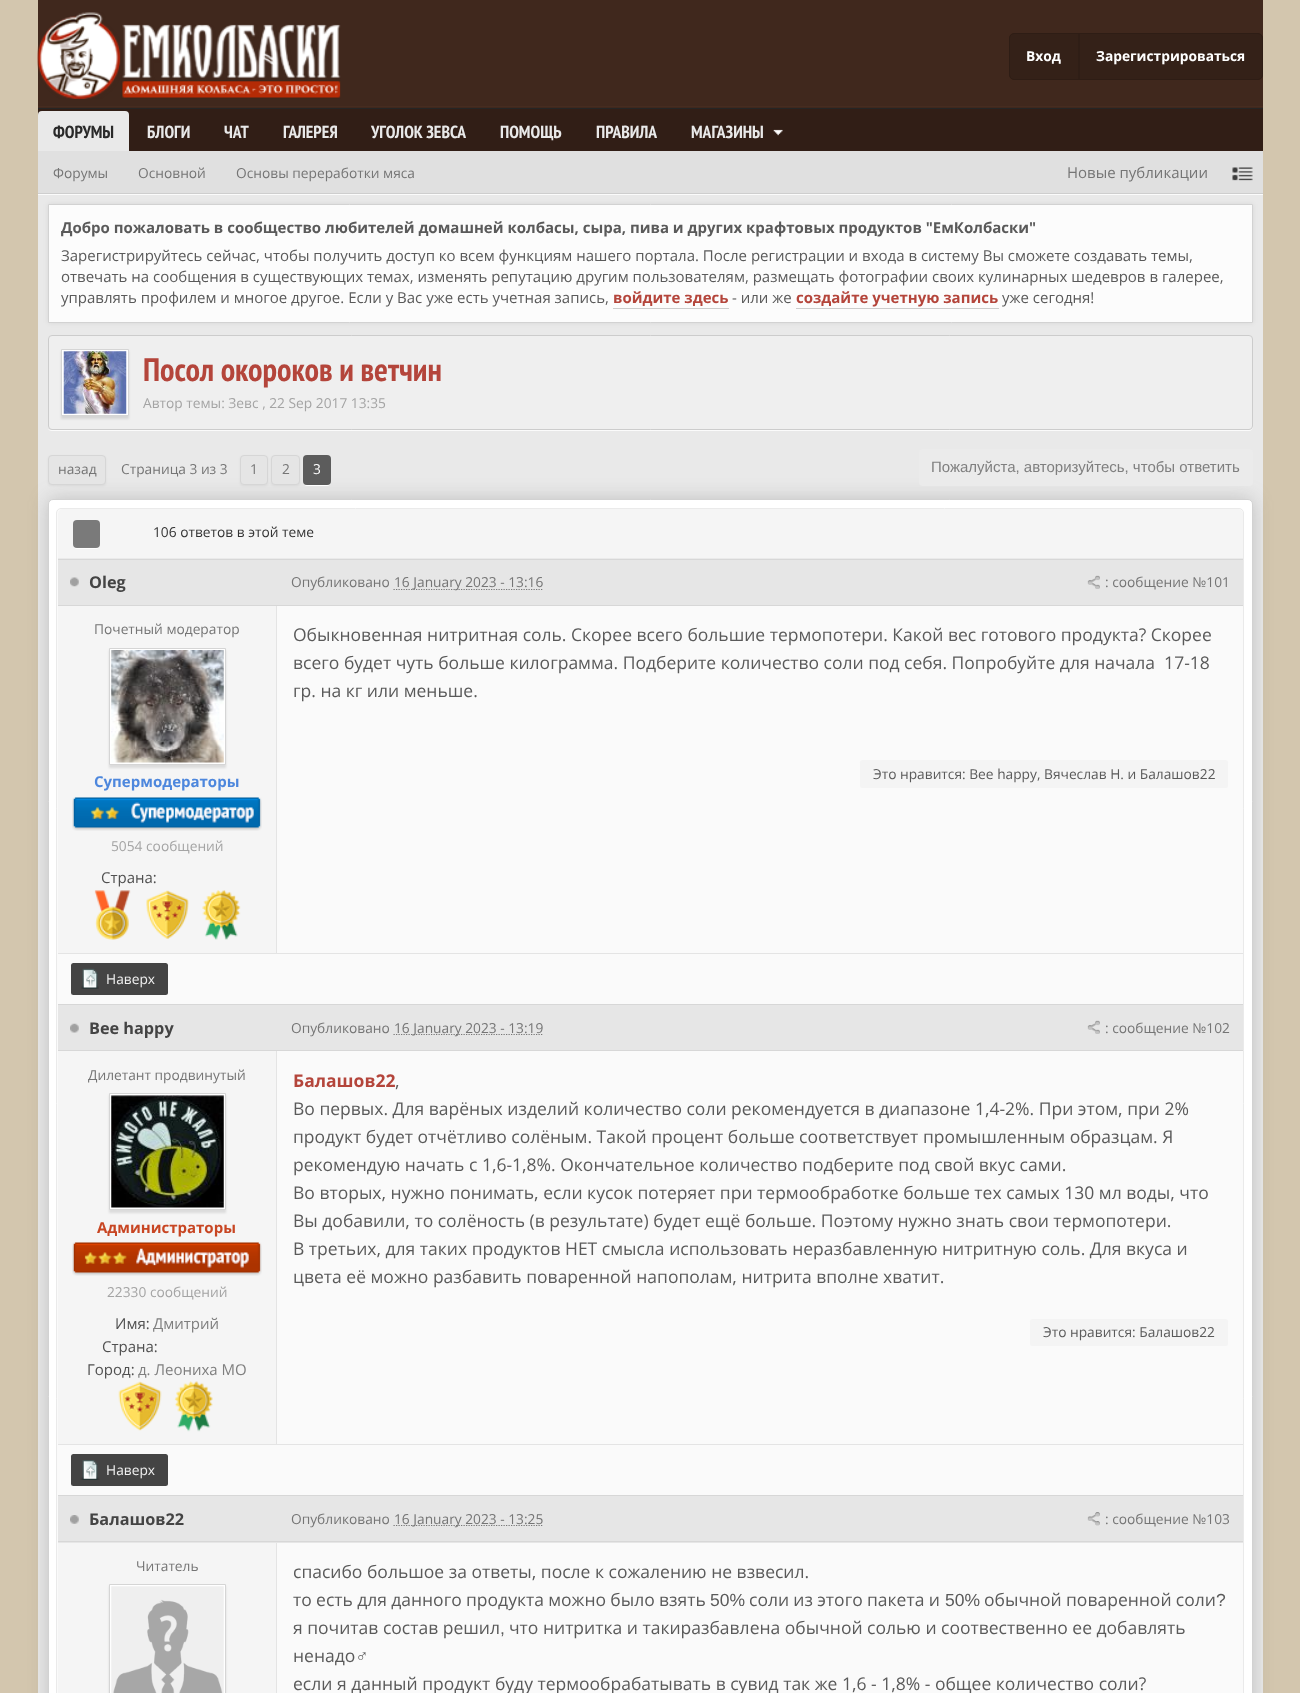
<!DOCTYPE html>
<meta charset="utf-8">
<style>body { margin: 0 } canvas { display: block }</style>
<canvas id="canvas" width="1300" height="1693"></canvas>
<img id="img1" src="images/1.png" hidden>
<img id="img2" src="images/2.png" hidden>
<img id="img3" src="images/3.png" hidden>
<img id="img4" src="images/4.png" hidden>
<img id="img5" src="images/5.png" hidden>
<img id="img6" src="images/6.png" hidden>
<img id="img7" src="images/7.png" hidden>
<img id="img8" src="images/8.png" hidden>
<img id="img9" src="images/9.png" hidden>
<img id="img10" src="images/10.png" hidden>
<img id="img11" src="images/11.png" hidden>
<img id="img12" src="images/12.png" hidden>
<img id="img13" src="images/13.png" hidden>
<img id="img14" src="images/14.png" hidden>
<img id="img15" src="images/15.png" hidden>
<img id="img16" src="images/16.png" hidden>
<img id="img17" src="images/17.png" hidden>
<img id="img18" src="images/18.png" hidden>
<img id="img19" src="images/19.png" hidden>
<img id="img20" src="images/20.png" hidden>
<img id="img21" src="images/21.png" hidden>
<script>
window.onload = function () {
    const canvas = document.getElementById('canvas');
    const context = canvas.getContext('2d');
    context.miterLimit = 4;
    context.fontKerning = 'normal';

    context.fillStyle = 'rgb(211, 198, 174)';
    context.fillRect(0, 0, 1300, 1693);
    context.fillStyle = 'rgb(64, 40, 29)';
    context.fillRect(38, 0, 1225, 108);
    context.fillStyle = 'rgb(70, 44, 32)';
    context.fillRect(38, 106, 1225, 1);
    context.drawImage(document.getElementById('img1'), 37, 12, 304, 87);
    context.fillStyle = 'rgb(52, 33, 24)';
    context.beginPath();
    context.roundRect(1009.5, 33.5, 253, 46, 4.5);
    context.fill();
    context.strokeStyle = 'rgb(46, 29, 21)';
    context.stroke();
    context.fillStyle = 'rgb(47, 30, 22)';
    context.fillRect(1078, 34, 2, 45);
    context.fillStyle = 'rgb(49, 30, 22)';
    context.fillRect(38, 109, 1225, 42);
    context.fillStyle = 'rgb(37, 37, 37)';
    context.fillRect(38, 108, 1225, 1);
    context.fillStyle = 'rgb(233, 233, 233)';
    context.beginPath();
    context.roundRect(38, 111, 91, 40, [4, 4, 0, 0]);
    context.fill();
    context.drawImage(document.getElementById('img2'), 773, 129, 10, 7);
    context.fillRect(38, 195, 1225, 1498);
    context.fillStyle = 'rgb(251, 251, 251)';
    context.beginPath();
    context.moveTo(38, 194);
    context.lineTo(38, 195);
    context.lineTo(1263, 195);
    context.lineTo(1263, 153);
    context.lineTo(1262, 153);
    context.lineTo(1262, 194);
    context.closePath();
    context.fill();
    context.fillStyle = 'rgb(224, 224, 224)';
    context.fillRect(38, 151, 1225, 42);
    context.fillStyle = 'rgb(206, 206, 206)';
    context.fillRect(38, 193, 1225, 1);
    context.drawImage(document.getElementById('img3'), 1232, 167, 21, 14);
    context.fillStyle = 'rgba(0, 0, 0, 0.07)';
    context.filter = 'blur(2.5px)';
    context.beginPath();
    context.rect(48, 204, 1205, 119);
    context.fill();
    context.filter = 'none';
    context.fillStyle = 'rgb(252, 252, 252)';
    context.beginPath();
    context.rect(48.5, 204.5, 1204, 118);
    context.fill();
    context.strokeStyle = 'rgb(210, 210, 210)';
    context.stroke();
    context.fillStyle = 'rgb(204, 204, 204)';
    context.fillRect(613, 308, 116, 1);
    context.fillRect(796, 308, 203, 1);
    context.fillStyle = 'rgb(251, 251, 251)';
    context.beginPath();
    context.moveTo(48, 429);
    context.bezierCurveTo(49, 430, 50, 431, 52, 431);
    context.lineTo(1249, 431);
    context.bezierCurveTo(1251, 431, 1253, 429, 1253, 427);
    context.lineTo(1253, 340);
    context.lineTo(1252, 338);
    context.lineTo(1252, 426);
    context.bezierCurveTo(1252, 428, 1251, 430, 1249, 430);
    context.lineTo(51, 430);
    context.bezierCurveTo(50, 430, 49, 429, 48, 429);
    context.closePath();
    context.fill();
    context.fillStyle = 'rgb(239, 239, 239)';
    context.beginPath();
    context.roundRect(48.5, 335.5, 1204, 94, 3.5);
    context.fill();
    context.strokeStyle = 'rgb(204, 204, 204)';
    context.stroke();
    context.fillStyle = 'rgba(0, 0, 0, 0.1)';
    context.filter = 'blur(1px)';
    context.beginPath();
    context.rect(61, 351, 68, 68);
    context.fill();
    context.filter = 'none';
    context.fillStyle = 'rgb(255, 255, 255)';
    context.beginPath();
    context.rect(61.5, 349.5, 67, 66);
    context.fill();
    context.strokeStyle = 'rgb(213, 213, 213)';
    context.stroke();
    context.drawImage(document.getElementById('img4'), 63, 351, 64, 63);
    context.fillStyle = 'rgba(0, 0, 0, 0.05)';
    context.filter = 'blur(1px)';
    context.beginPath();
    context.roundRect(48, 456, 58, 30, 4);
    context.fill();
    context.filter = 'none';
    context.fillStyle = 'rgba(100, 100, 100, 0.3)';
    context.filter = 'blur(9.5px)';
    context.beginPath();
    context.roundRect(48, 499, 1205, 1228, 5);
    context.fill();
    context.filter = 'none';
    context.fillStyle = 'rgb(229, 229, 229)';
    context.beginPath();
    context.roundRect(48.5, 455.5, 57, 29, 3.5);
    context.fill();
    context.strokeStyle = 'rgb(214, 214, 214)';
    context.stroke();
    context.fillStyle = 'rgba(0, 0, 0, 0.05)';
    context.filter = 'blur(1px)';
    context.beginPath();
    context.roundRect(240, 456, 28, 30, 4);
    context.fill();
    context.filter = 'none';
    context.fillStyle = 'rgb(229, 229, 229)';
    context.beginPath();
    context.roundRect(240.5, 455.5, 27, 29, 3.5);
    context.fill();
    context.stroke();
    context.fillStyle = 'rgba(0, 0, 0, 0.05)';
    context.filter = 'blur(1px)';
    context.beginPath();
    context.roundRect(271, 456, 29, 30, 4);
    context.fill();
    context.filter = 'none';
    context.fillStyle = 'rgb(229, 229, 229)';
    context.beginPath();
    context.roundRect(271.5, 455.5, 28, 29, 3.5);
    context.fill();
    context.stroke();
    context.fillStyle = 'rgb(255, 255, 255)';
    context.beginPath();
    context.moveTo(303.5, 483.5);
    context.bezierCurveTo(304, 485, 305.5, 486, 307, 486);
    context.lineTo(327, 486);
    context.bezierCurveTo(329, 486, 330.5, 484.5, 331, 483);
    context.bezierCurveTo(330.5, 484, 329, 485, 327.5, 485);
    context.lineTo(306, 485);
    context.bezierCurveTo(305, 485, 304, 484.5, 303.5, 483.5);
    context.closePath();
    context.fill();
    context.fillStyle = 'rgb(92, 92, 92)';
    context.beginPath();
    context.roundRect(303, 455, 28, 30, 4);
    context.fill();
    context.fillStyle = 'rgb(235, 235, 235)';
    context.beginPath();
    context.roundRect(919, 449, 334, 37, 4);
    context.fill();
    context.fillStyle = 'rgb(255, 255, 255)';
    context.beginPath();
    context.roundRect(48.5, 499.5, 1204, 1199, 4.5);
    context.fill();
    context.strokeStyle = 'rgb(210, 210, 210)';
    context.stroke();
    context.fillStyle = 'rgb(250, 250, 250)';
    context.beginPath();
    context.roundRect(56.5, 508.5, 1187, 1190, 4.5);
    context.fill();
    context.strokeStyle = 'rgb(234, 234, 234)';
    context.stroke();
    context.fillStyle = 'rgb(245, 245, 245)';
    context.beginPath();
    context.roundRect(58, 509, 1185, 50, [5, 5, 0, 0]);
    context.fill();
    context.fillStyle = 'rgb(234, 234, 234)';
    context.fillRect(58, 558, 1185, 1);
    context.fillStyle = 'rgb(255, 255, 255)';
    context.beginPath();
    context.moveTo(73, 545.5);
    context.bezierCurveTo(73.5, 547.5, 75, 549, 77, 549);
    context.lineTo(96, 549);
    context.bezierCurveTo(98, 549, 100, 547, 100, 545);
    context.lineTo(100, 544);
    context.bezierCurveTo(100, 546, 98.5, 547.5, 96, 547.5);
    context.lineTo(76, 547.5);
    context.bezierCurveTo(75, 547.5, 73.5, 547, 73, 545.5);
    context.closePath();
    context.fill();
    context.fillStyle = 'rgba(0, 0, 0, 0.5)';
    context.beginPath();
    context.roundRect(73, 520, 27, 28, 4);
    context.fill();
    context.fillStyle = 'rgb(245, 245, 245)';
    context.fillRect(58, 606, 218, 347);
    context.fillStyle = 'rgb(230, 230, 230)';
    context.fillRect(58, 560, 1185, 45);
    context.fillStyle = 'rgb(215, 215, 215)';
    context.fillRect(58, 559, 1185, 1);
    context.fillRect(58, 605, 1185, 1);
    context.drawImage(document.getElementById('img5'), 70, 577, 9, 10);
    context.beginPath();
    context.moveTo(393.5, 589.5);
    context.lineTo(543, 589.5);
    context.strokeStyle = 'rgb(119, 119, 119)';
    context.lineWidth = 1.2;
    context.setLineDash([1.25, 1.25]);
    context.stroke();
    context.drawImage(document.getElementById('img6'), 1087, 575, 13, 14);
    context.fillStyle = 'rgba(0, 0, 0, 0.1)';
    context.filter = 'blur(1px)';
    context.beginPath();
    context.rect(109, 650, 117, 118);
    context.fill();
    context.filter = 'none';
    context.fillStyle = 'rgb(255, 255, 255)';
    context.beginPath();
    context.rect(109.5, 648.5, 116, 116);
    context.fill();
    context.strokeStyle = 'rgb(213, 213, 213)';
    context.lineWidth = 1;
    context.setLineDash([]);
    context.stroke();
    context.drawImage(document.getElementById('img7'), 111, 650, 113, 113);
    context.drawImage(document.getElementById('img8'), 72, 797, 190, 34);
    context.drawImage(document.getElementById('img9'), 94, 890, 37, 50);
    context.drawImage(document.getElementById('img10'), 146, 890, 43, 49);
    context.drawImage(document.getElementById('img11'), 202, 890, 39, 50);
    context.fillStyle = 'rgb(228, 228, 228)';
    context.fillRect(276, 606, 1, 347);
    context.fillStyle = 'rgb(244, 244, 244)';
    context.beginPath();
    context.roundRect(860, 760, 368, 28, 2.5);
    context.fill();
    context.fillStyle = 'rgb(228, 228, 228)';
    context.fillRect(58, 953, 1185, 1);
    context.fillStyle = 'rgb(68, 68, 68)';
    context.beginPath();
    context.roundRect(71, 963, 97, 32, 2.5);
    context.fill();
    context.drawImage(document.getElementById('img12'), 81, 968, 18, 21);
    context.fillStyle = 'rgb(245, 245, 245)';
    context.fillRect(58, 1051, 218, 393);
    context.fillStyle = 'rgb(230, 230, 230)';
    context.fillRect(58, 1005, 1185, 45);
    context.fillStyle = 'rgb(215, 215, 215)';
    context.fillRect(58, 1004, 1185, 1);
    context.fillRect(58, 1050, 1185, 1);
    context.drawImage(document.getElementById('img13'), 70, 1023, 9, 10);
    context.beginPath();
    context.moveTo(393.5, 1034.5);
    context.lineTo(543, 1034.5);
    context.strokeStyle = 'rgb(119, 119, 119)';
    context.lineWidth = 1.2;
    context.setLineDash([1.25, 1.25]);
    context.stroke();
    context.drawImage(document.getElementById('img6'), 1087, 1020, 13, 14);
    context.fillStyle = 'rgba(0, 0, 0, 0.1)';
    context.filter = 'blur(1px)';
    context.beginPath();
    context.rect(109, 1095, 117, 118);
    context.fill();
    context.filter = 'none';
    context.fillStyle = 'rgb(255, 255, 255)';
    context.beginPath();
    context.rect(109.5, 1093.5, 116, 116);
    context.fill();
    context.strokeStyle = 'rgb(213, 213, 213)';
    context.lineWidth = 1;
    context.setLineDash([]);
    context.stroke();
    context.drawImage(document.getElementById('img14'), 111, 1095, 113, 113);
    context.drawImage(document.getElementById('img15'), 72, 1242, 190, 34);
    context.drawImage(document.getElementById('img16'), 118, 1381, 44, 50);
    context.drawImage(document.getElementById('img17'), 174, 1381, 39, 51);
    context.fillStyle = 'rgb(228, 228, 228)';
    context.fillRect(276, 1051, 1, 393);
    context.fillStyle = 'rgb(244, 244, 244)';
    context.beginPath();
    context.roundRect(1030, 1319, 198, 27, 2.5);
    context.fill();
    context.fillStyle = 'rgb(228, 228, 228)';
    context.fillRect(58, 1444, 1185, 1);
    context.fillStyle = 'rgb(68, 68, 68)';
    context.beginPath();
    context.roundRect(71, 1454, 97, 32, 2.5);
    context.fill();
    context.drawImage(document.getElementById('img18'), 80, 1460, 20, 20);
    context.fillStyle = 'rgb(245, 245, 245)';
    context.fillRect(58, 1543, 218, 150);
    context.fillStyle = 'rgb(230, 230, 230)';
    context.fillRect(58, 1496, 1185, 47);
    context.fillStyle = 'rgb(215, 215, 215)';
    context.fillRect(58, 1495, 1185, 1);
    context.fillRect(58, 1541, 1185, 1);
    context.drawImage(document.getElementById('img19'), 70, 1515, 9, 9);
    context.beginPath();
    context.moveTo(393.5, 1525.5);
    context.lineTo(543, 1525.5);
    context.strokeStyle = 'rgb(119, 119, 119)';
    context.lineWidth = 1.2;
    context.setLineDash([1.25, 1.25]);
    context.stroke();
    context.drawImage(document.getElementById('img20'), 1087, 1512, 13, 14);
    context.fillStyle = 'rgba(0, 0, 0, 0.1)';
    context.filter = 'blur(1px)';
    context.beginPath();
    context.rect(109, 1586, 117, 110);
    context.fill();
    context.filter = 'none';
    context.fillStyle = 'rgb(255, 255, 255)';
    context.beginPath();
    context.rect(109.5, 1584.5, 116, 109);
    context.fill();
    context.strokeStyle = 'rgb(213, 213, 213)';
    context.lineWidth = 1;
    context.setLineDash([]);
    context.stroke();
    context.drawImage(document.getElementById('img21'), 111, 1586, 113, 107);
    context.fillStyle = 'rgb(228, 228, 228)';
    context.fillRect(276, 1543, 1, 150);
    context.font = 'bold 13.75px Open Sans';
    context.fillStyle = 'rgb(255, 255, 255)';
    context.fillText('Вход', 1026, 61);
    context.fillText('Зарегистрироваться', 1096, 61);
    context.font = 'bold 17.5px PT Sans Narrow';
    context.fillStyle = 'rgb(41, 41, 41)';
    context.fillText('ФОРУМЫ', 53, 138);
    context.fillStyle = 'rgb(233, 233, 233)';
    context.fillText('БЛОГИ', 147, 138);
    context.fillText('ЧАТ', 224, 138);
    context.fillText('ГАЛЕРЕЯ', 283, 138);
    context.fillText('УГОЛОК ЗЕВСА', 371, 138);
    context.fillText('ПОМОЩЬ', 500, 138);
    context.fillText('ПРАВИЛА', 596, 138);
    context.fillText('МАГАЗИНЫ', 691, 138);
    context.font = '13.75px Open Sans';
    context.fillStyle = 'rgb(117, 117, 117)';
    context.fillText('Форумы', 53, 178);
    context.fillText('Основной', 138, 178);
    context.fillText('Основы переработки мяса', 236, 178);
    context.font = '15px Open Sans';
    context.fillText('Новые публикации', 1067, 178);
    context.font = 'bold 15px Open Sans';
    context.fillStyle = 'rgb(90, 90, 90)';
    context.fillText('Добро пожаловать в сообщество любителей домашней колбасы, сыра, пива и других крафтовых продуктов "ЕмКолбаски"', 61, 233);
    context.font = '15px Open Sans';
    context.fillText('Зарегистрируйтесь сейчас, чтобы получить доступ ко всем функциям нашего портала. После регистрации и входа в систему Вы сможете создавать темы,', 61, 261);
    context.fillText('отвечать на сообщения в существующих темах, изменять репутацию другим пользователям, размещать фотографии своих кулинарных шедевров в галерее,', 61, 282);
    context.fillText('управлять профилем и многое другое. Если у Вас уже есть учетная запись,', 61, 303);
    context.font = 'bold 15px Open Sans';
    context.fillStyle = 'rgb(180, 69, 59)';
    context.fillText('войдите здесь', 613, 303);
    context.font = '15px Open Sans';
    context.fillStyle = 'rgb(90, 90, 90)';
    context.fillText('- или же', 732, 303);
    context.font = 'bold 15px Open Sans';
    context.fillStyle = 'rgb(180, 69, 59)';
    context.fillText('создайте учетную запись', 796, 303);
    context.font = '15px Open Sans';
    context.fillStyle = 'rgb(90, 90, 90)';
    context.fillText('уже сегодня!', 1002, 303);
    context.font = 'bold 32.5px PT Sans Narrow';
    context.fillStyle = 'rgb(180, 69, 59)';
    context.fillText('Посол окороков и ветчин', 143, 381);
    context.font = '13.75px Open Sans';
    context.fillStyle = 'rgb(164, 164, 164)';
    context.fillText('Автор темы: Зевс , 22 Sep 2017 13:35', 143, 408);
    context.fillStyle = 'rgb(117, 117, 117)';
    context.fillText('назад', 58, 474);
    context.fillText('Страница 3 из 3', 121, 474);
    context.fillText('1', 250, 474);
    context.fillText('2', 282, 474);
    context.fillStyle = 'rgb(255, 255, 255)';
    context.fillText('3', 313, 474);
    context.font = '15px Liberation Sans';
    context.fillStyle = 'rgb(127, 127, 127)';
    context.fillText('Пожалуйста, авторизуйтесь, чтобы ответить', 931, 472);
    context.font = '13.75px Open Sans';
    context.fillStyle = 'rgb(51, 51, 51)';
    context.fillText('106 ответов в этой теме', 153, 537);
    context.font = 'bold 16.25px Open Sans';
    context.fillStyle = 'rgb(68, 68, 68)';
    context.fillText('Oleg', 89, 588);
    context.font = '13.75px Open Sans';
    context.fillStyle = 'rgb(117, 117, 117)';
    context.fillText('Опубликовано', 291, 587);
    context.fillText('16 January 2023 - 13:16', 394, 587);
    context.fillText(': сообщение №101', 1105, 587);
    context.fillText('Почетный модератор', 94, 634);
    context.font = 'bold 15px Open Sans';
    context.fillStyle = 'rgb(77, 135, 221)';
    context.fillText('Супермодераторы', 94, 787);
    context.font = '13.75px Open Sans';
    context.fillStyle = 'rgb(164, 164, 164)';
    context.fillText('5054 сообщений', 111, 851);
    context.font = '15px Open Sans';
    context.fillStyle = 'rgb(80, 80, 80)';
    context.fillText('Страна:', 101, 883);
    context.font = '17.5px Open Sans';
    context.fillStyle = 'rgb(90, 90, 90)';
    context.fillText('Обыкновенная нитритная соль. Скорее всего большие термопотери. Какой вес готового продукта? Скорее', 293, 641);
    context.fillText('всего будет чуть больше килограмма. Подберите количество соли под себя. Попробуйте для начала  17-18', 293, 669);
    context.fillText('гр. на кг или меньше.', 293, 697);
    context.font = '13.75px Open Sans';
    context.fillText('Это нравится: Bee happy, Вячеслав Н. и Балашов22', 873, 779);
    context.fillStyle = 'rgb(240, 240, 240)';
    context.fillText('Наверх', 106, 984);
    context.font = 'bold 16.25px Open Sans';
    context.fillStyle = 'rgb(68, 68, 68)';
    context.fillText('Bee happy', 89, 1034);
    context.font = '13.75px Open Sans';
    context.fillStyle = 'rgb(117, 117, 117)';
    context.fillText('Опубликовано', 291, 1033);
    context.fillText('16 January 2023 - 13:19', 394, 1033);
    context.fillText(': сообщение №102', 1105, 1033);
    context.fillText('Дилетант продвинутый', 88, 1080);
    context.font = 'bold 15px Open Sans';
    context.fillStyle = 'rgb(200, 70, 35)';
    context.fillText('Администраторы', 97, 1233);
    context.font = '13.75px Open Sans';
    context.fillStyle = 'rgb(164, 164, 164)';
    context.fillText('22330 сообщений', 107, 1297);
    context.font = '15px Open Sans';
    context.fillStyle = 'rgb(80, 80, 80)';
    context.fillText('Имя:', 115, 1329);
    context.fillStyle = 'rgb(127, 127, 127)';
    context.fillText('Дмитрий', 153, 1329);
    context.fillStyle = 'rgb(80, 80, 80)';
    context.fillText('Страна:', 102, 1352);
    context.fillText('Город:', 87, 1375);
    context.fillStyle = 'rgb(127, 127, 127)';
    context.fillText('д. Леониха МО', 138, 1375);
    context.font = 'bold 17.5px Open Sans';
    context.fillStyle = 'rgb(180, 69, 59)';
    context.fillText('Балашов22', 293, 1087);
    context.font = '17.5px Open Sans';
    context.fillStyle = 'rgb(90, 90, 90)';
    context.fillText(',', 395, 1087);
    context.fillText('Во первых. Для варёных изделий количество соли рекомендуется в диапазоне 1,4-2%. При этом, при 2%', 293, 1115);
    context.fillText('продукт будет отчётливо солёным. Такой процент больше соответствует промышленным образцам. Я', 293, 1143);
    context.fillText('рекомендую начать с 1,6-1,8%. Окончательное количество подберите под свой вкус сами.', 293, 1171);
    context.fillText('Во вторых, нужно понимать, если кусок потеряет при термообработке больше тех самых 130 мл воды, что', 293, 1199);
    context.fillText('Вы добавили, то солёность (в результате) будет ещё больше. Поэтому нужно знать свои термопотери.', 293, 1227);
    context.fillText('В третьих, для таких продуктов НЕТ смысла использовать неразбавленную нитритную соль. Для вкуса и', 293, 1255);
    context.fillText('цвета её можно разбавить поваренной напополам, нитрита вполне хватит.', 293, 1283);
    context.font = '13.75px Open Sans';
    context.fillText('Это нравится: Балашов22', 1043, 1337);
    context.fillStyle = 'rgb(240, 240, 240)';
    context.fillText('Наверх', 106, 1475);
    context.font = 'bold 16.25px Open Sans';
    context.fillStyle = 'rgb(68, 68, 68)';
    context.fillText('Балашов22', 89, 1525);
    context.font = '13.75px Open Sans';
    context.fillStyle = 'rgb(117, 117, 117)';
    context.fillText('Опубликовано', 291, 1524);
    context.fillText('16 January 2023 - 13:25', 394, 1524);
    context.fillText(': сообщение №103', 1105, 1524);
    context.fillText('Читатель', 136, 1571);
    context.font = '17.5px Open Sans';
    context.fillStyle = 'rgb(90, 90, 90)';
    context.fillText('спасибо большое за ответы, после к сожалению не взвесил.', 293, 1578);
    context.wordSpacing = '-0.25px';
    context.fillText('то есть для данного продукта можно было взять', 293, 1606);
    context.wordSpacing = '0px';
    context.font = '17.5px Liberation Sans';
    context.fillText('50%', 710, 1606);
    context.wordSpacing = '-0.25px';
    context.font = '17.5px Open Sans';
    context.fillText('соли из этого пакета и', 749, 1606);
    context.wordSpacing = '0px';
    context.font = '17.5px Liberation Sans';
    context.fillText('50%', 945, 1606);
    context.wordSpacing = '-0.25px';
    context.font = '17.5px Open Sans';
    context.fillText('обычной поваренной соли', 984, 1606);
    context.wordSpacing = '0px';
    context.font = '17.5px Liberation Sans';
    context.fillText('?', 1216, 1606);
    context.font = '17.5px Open Sans';
    context.fillText('я почитав состав решил', 293, 1634);
    context.font = '17.5px Liberation Sans';
    context.fillText(',', 500, 1634);
    context.font = '17.5px Open Sans';
    context.fillText('что нитритка и такиразбавлена обычной солью и соотвественно ее добавлять', 509, 1634);
    context.fillText('ненадо‍♂', 293, 1662);
    context.fillText('если я данный продукт буду термообрабатывать в сувид так же 1,6 - 1,8% - общее количество соли?', 293, 1690);
};
</script>
